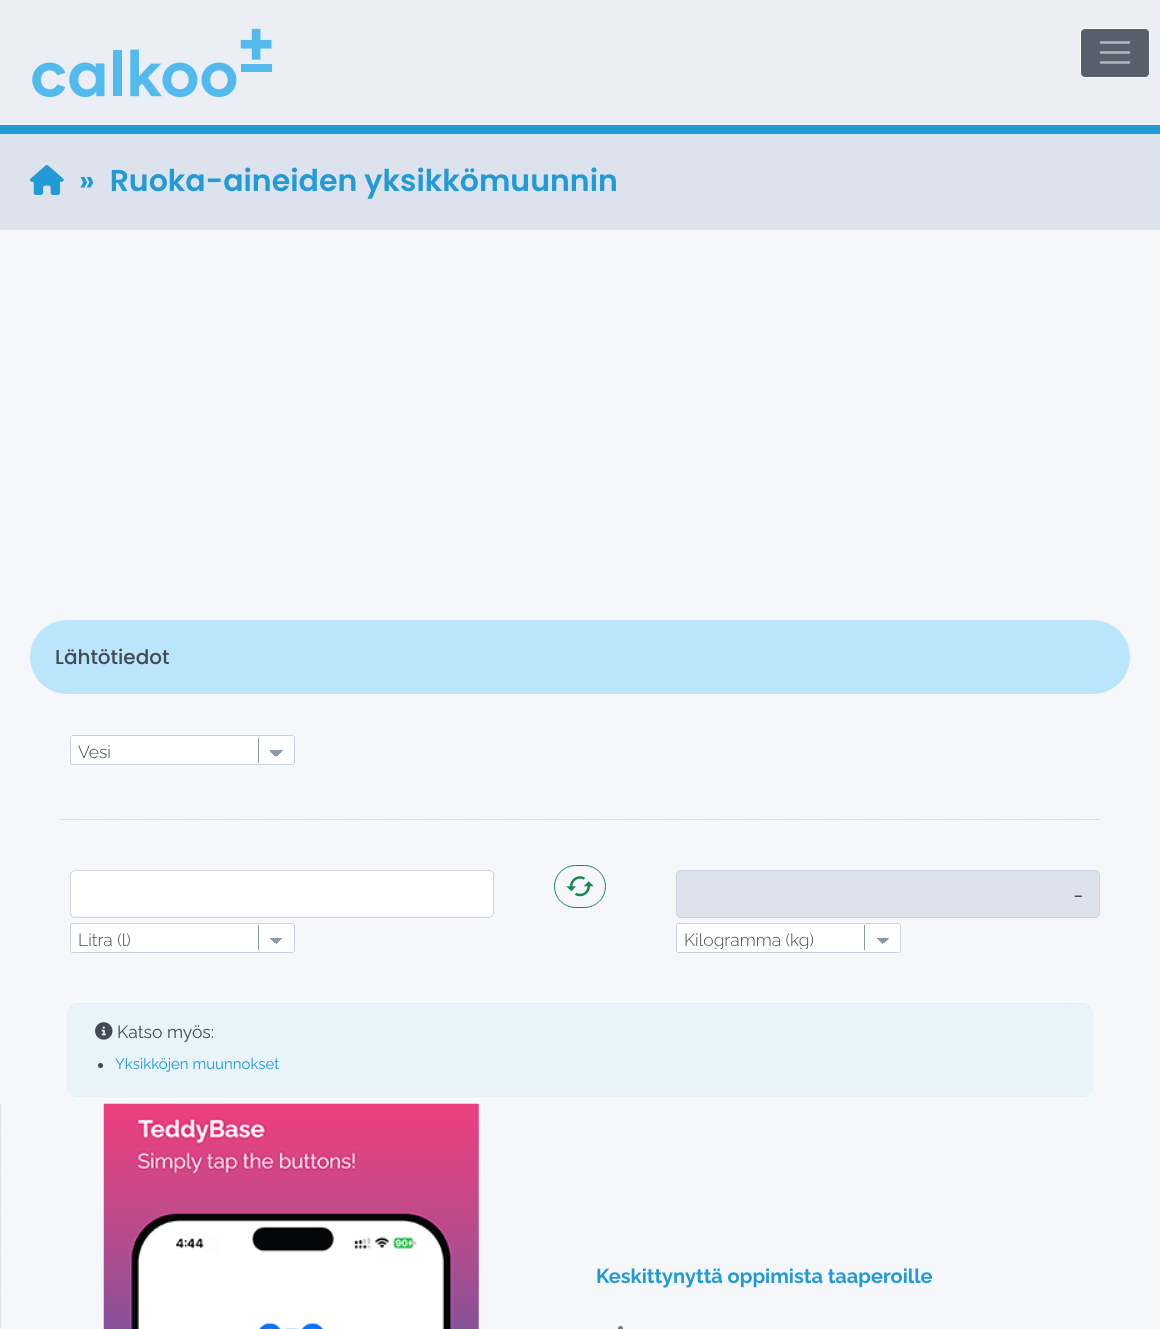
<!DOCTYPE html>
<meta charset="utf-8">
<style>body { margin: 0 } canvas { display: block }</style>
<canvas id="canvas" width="1160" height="1329"></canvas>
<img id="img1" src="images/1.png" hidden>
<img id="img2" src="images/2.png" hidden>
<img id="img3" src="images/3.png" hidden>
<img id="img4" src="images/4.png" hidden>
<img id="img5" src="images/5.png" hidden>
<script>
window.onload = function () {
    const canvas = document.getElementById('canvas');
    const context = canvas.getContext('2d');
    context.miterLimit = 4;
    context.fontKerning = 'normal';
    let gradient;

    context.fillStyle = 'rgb(245, 247, 250)';
    context.fillRect(0, 0, 1160, 1329);
    context.fillStyle = 'rgb(235, 239, 245)';
    context.fillRect(0, 0, 1160, 125);
    context.fillStyle = 'rgb(34, 154, 214)';
    context.fillRect(0, 125, 1160, 9);
    context.drawImage(document.getElementById('img1'), 32, 28, 240, 70);
    context.fillStyle = 'rgb(88, 96, 110)';
    context.beginPath();
    context.roundRect(1080.5, 28.5, 69, 49, 4.5);
    context.fill();
    context.strokeStyle = 'rgb(255, 255, 255)';
    context.stroke();
    context.beginPath();
    context.moveTo(1101, 42.5);
    context.lineTo(1129, 42.5);
    context.moveTo(1101, 52.5);
    context.lineTo(1129, 52.5);
    context.moveTo(1101, 62.5);
    context.lineTo(1129, 62.5);
    context.strokeStyle = 'rgb(180, 183, 190)';
    context.lineWidth = 2.5;
    context.lineCap = 'round';
    context.stroke();
    context.fillStyle = 'rgb(221, 227, 237)';
    context.fillRect(0, 134, 1160, 96);
    context.drawImage(document.getElementById('img2'), 30, 165, 34, 30);
    context.fillStyle = 'rgb(187, 229, 250)';
    context.beginPath();
    context.roundRect(30, 620, 1100, 74, 37);
    context.fill();
    context.fillStyle = 'rgb(255, 255, 255)';
    context.beginPath();
    context.roundRect(70, 735, 225, 30, 2.5);
    context.fill();
    context.fillStyle = 'rgb(142, 153, 171)';
    context.fillRect(258, 738, 1, 25);
    gradient = context.createLinearGradient(276, 751, 283, 757);
    gradient.addColorStop(0.5, 'rgb(142, 153, 171)');
    gradient.addColorStop(0.5, 'rgb(255, 255, 255)');
    context.fillStyle = gradient;
    context.fillRect(276, 750, 7, 6);
    gradient = context.createLinearGradient(270, 757, 276, 751);
    gradient.addColorStop(0.5, 'rgb(255, 255, 255)');
    gradient.addColorStop(0.5, 'rgb(142, 153, 171)');
    context.fillStyle = gradient;
    context.fillRect(270, 750, 6, 6);
    context.beginPath();
    context.roundRect(70.5, 735.5, 224, 29, 2);
    context.strokeStyle = 'rgb(200, 209, 224)';
    context.lineWidth = 1;
    context.stroke();
    context.fillStyle = 'rgb(201, 204, 209)';
    context.fillRect(60, 819, 1040, 1);
    context.beginPath();
    context.moveTo(60, 819.5);
    context.lineTo(1100, 819.5);
    context.strokeStyle = 'rgb(234, 238, 244)';
    context.lineWidth = 1.2;
    context.lineCap = 'butt';
    context.setLineDash([1.25, 1.25]);
    context.stroke();
    context.beginPath();
    context.roundRect(554.5, 865.5, 51, 42, 21);
    context.strokeStyle = 'rgb(25, 135, 84)';
    context.lineWidth = 1;
    context.setLineDash([]);
    context.stroke();
    context.drawImage(document.getElementById('img3'), 566, 876, 28, 21);
    context.fillStyle = 'rgb(255, 255, 255)';
    context.beginPath();
    context.roundRect(71, 871, 422, 45, 4);
    context.fill();
    context.beginPath();
    context.roundRect(70.5, 870.5, 423, 47, 4.5);
    context.strokeStyle = 'rgb(206, 212, 218)';
    context.stroke();
    context.beginPath();
    context.roundRect(70, 923, 225, 30, 2.5);
    context.fill();
    context.fillStyle = 'rgb(142, 153, 171)';
    context.fillRect(258, 925, 1, 25);
    gradient = context.createLinearGradient(276, 938, 283, 944);
    gradient.addColorStop(0.5, 'rgb(142, 153, 171)');
    gradient.addColorStop(0.5, 'rgb(255, 255, 255)');
    context.fillStyle = gradient;
    context.fillRect(276, 938, 7, 6);
    gradient = context.createLinearGradient(270, 944, 276, 938);
    gradient.addColorStop(0.5, 'rgb(255, 255, 255)');
    gradient.addColorStop(0.5, 'rgb(142, 153, 171)');
    context.fillStyle = gradient;
    context.fillRect(270, 938, 6, 5);
    context.beginPath();
    context.roundRect(70.5, 923.5, 224, 29, 2);
    context.strokeStyle = 'rgb(200, 209, 224)';
    context.stroke();
    context.fillStyle = 'rgb(221, 227, 237)';
    context.beginPath();
    context.roundRect(676.5, 870.5, 423, 47, 4.5);
    context.fill();
    context.stroke();
    context.fillStyle = 'rgb(255, 255, 255)';
    context.beginPath();
    context.roundRect(676, 923, 225, 30, 2.5);
    context.fill();
    context.fillStyle = 'rgb(142, 153, 171)';
    context.fillRect(864, 925, 1, 25);
    gradient = context.createLinearGradient(883, 938, 889, 944);
    gradient.addColorStop(0.5, 'rgb(142, 153, 171)');
    gradient.addColorStop(0.5, 'rgb(255, 255, 255)');
    context.fillStyle = gradient;
    context.fillRect(883, 938, 6, 5);
    gradient = context.createLinearGradient(876, 944, 883, 938);
    gradient.addColorStop(0.5, 'rgb(255, 255, 255)');
    gradient.addColorStop(0.5, 'rgb(142, 153, 171)');
    context.fillStyle = gradient;
    context.fillRect(876, 938, 7, 6);
    context.beginPath();
    context.roundRect(676.5, 923.5, 224, 29, 2);
    context.stroke();
    context.fillStyle = 'rgb(232, 244, 250)';
    context.beginPath();
    context.roundRect(65.5, 1001.5, 1029, 97, 12.5);
    context.fill();
    context.strokeStyle = 'rgb(255, 255, 255)';
    context.stroke();
    context.drawImage(document.getElementById('img4'), 95, 1022, 18, 18);
    context.fillStyle = 'rgb(67, 74, 84)';
    context.beginPath();
    context.arc(100.5, 1065.5, 2.5, 0, 2 * Math.PI);
    context.fill();
    context.beginPath();
    context.moveTo(0.5, 1104);
    context.lineTo(0.5, 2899);
    context.strokeStyle = 'rgb(200, 209, 224)';
    context.lineWidth = 1.2;
    context.setLineDash([1.25, 1.25]);
    context.stroke();
    context.drawImage(document.getElementById('img5'), 103, 1103, 376, 226);
    context.fillStyle = 'rgb(112, 122, 138)';
    context.beginPath();
    context.arc(620.5, 1328.5, 2.5, 0, 2 * Math.PI);
    context.fill();
    context.font = '600 30px Poppins';
    context.fillStyle = 'rgb(34, 154, 214)';
    context.fillText('» Ruoka-aineiden yksikkömuunnin', 79, 191);
    context.font = '500 20px Poppins';
    context.fillStyle = 'rgb(67, 74, 84)';
    context.fillText('Lähtötiedot', 55, 664);
    context.font = '300 17.5px Raleway';
    context.fillText('Vesi', 78, 758);
    context.fillText('Litra (l)', 78, 946);
    context.font = '300 25px Raleway';
    context.fillStyle = 'rgb(33, 37, 41)';
    context.fillText('-', 1073, 903);
    context.save();
    context.beginPath();
    context.rect(684, 929, 171, 20);
    context.clip();
    context.font = '300 17.5px Raleway';
    context.fillStyle = 'rgb(67, 74, 84)';
    context.fillText('Kilogramma (kg)', 684, 946);
    context.restore();
    context.font = '17.5px Raleway';
    context.fillStyle = 'rgb(67, 74, 84)';
    context.fillText('Katso myös:', 117, 1038);
    context.font = '15px Raleway';
    context.fillStyle = 'rgb(34, 154, 214)';
    context.fillText('Yksikköjen muunnokset', 115, 1069);
    context.font = 'bold 20px Raleway';
    context.fillText('Keskittynyttä oppimista taaperoille', 596, 1283);
};
</script>
